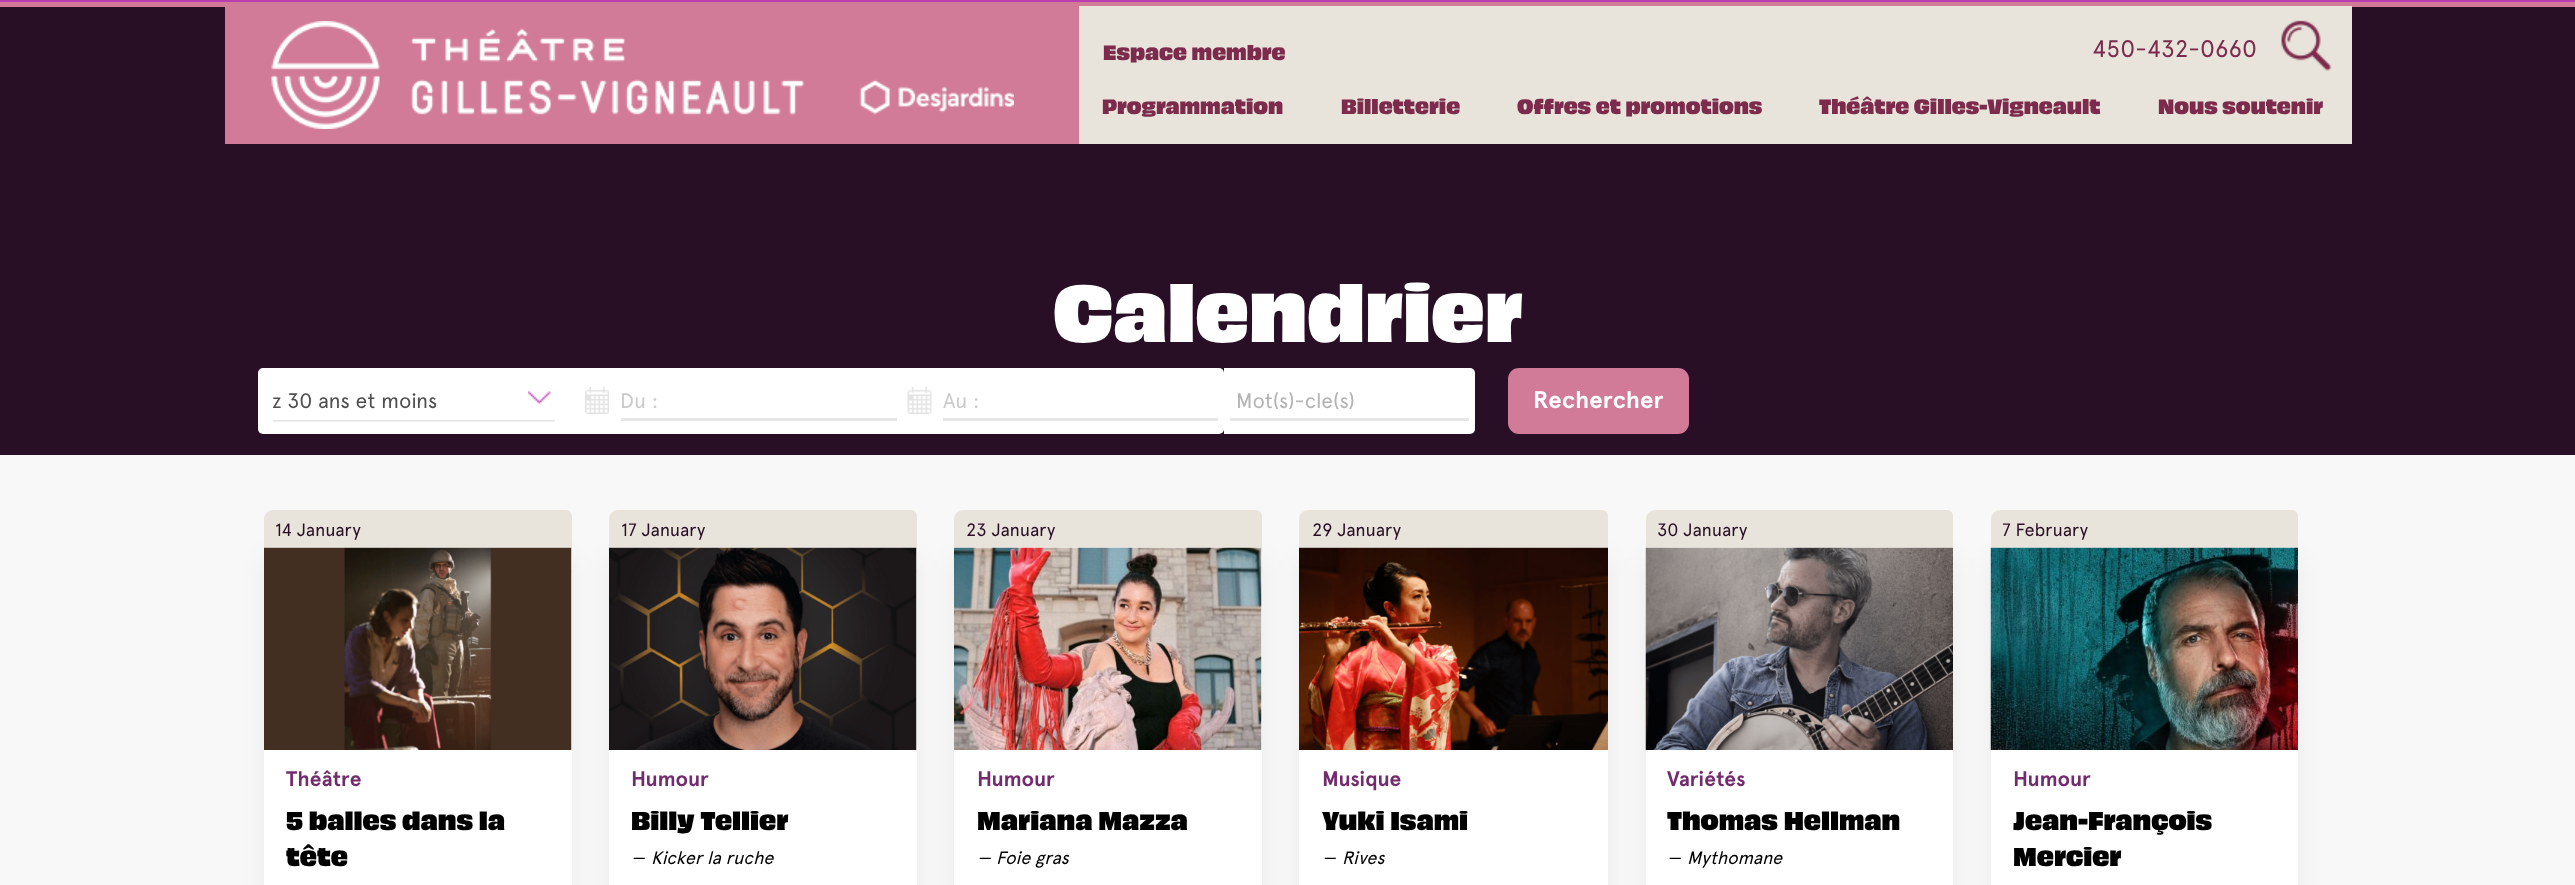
<!DOCTYPE html>
<meta charset="utf-8">
<style>body { margin: 0 } canvas { display: block }</style>
<canvas id="canvas" width="2575" height="885"></canvas>
<img id="img1" src="images/1.png" hidden>
<img id="img2" src="images/2.png" hidden>
<img id="img3" src="images/3.png" hidden>
<img id="img4" src="images/4.png" hidden>
<img id="img5" src="images/5.png" hidden>
<img id="img6" src="images/6.png" hidden>
<img id="img7" src="images/7.png" hidden>
<img id="img8" src="images/8.png" hidden>
<img id="img9" src="images/9.png" hidden>
<img id="img10" src="images/10.png" hidden>
<img id="img11" src="images/11.png" hidden>
<img id="img12" src="images/12.png" hidden>
<img id="img13" src="images/13.png" hidden>
<img id="img14" src="images/14.png" hidden>
<img id="img15" src="images/15.png" hidden>
<script>
window.onload = function () {
    const canvas = document.getElementById('canvas');
    const context = canvas.getContext('2d');
    context.miterLimit = 4;
    context.fontKerning = 'normal';

    context.fillStyle = 'rgb(248, 248, 248)';
    context.fillRect(0, 0, 2575, 885);
    context.fillStyle = 'rgb(186, 61, 176)';
    context.fillRect(0, 0, 2575, 2);
    context.fillStyle = 'rgb(209, 123, 153)';
    context.fillRect(0, 2, 2575, 5);
    context.fillStyle = 'rgb(41, 15, 38)';
    context.fillRect(0, 7, 2575, 448);
    context.fillStyle = 'rgb(232, 228, 219)';
    context.fillRect(1079, 6, 1273, 138);
    context.fillStyle = 'rgb(209, 123, 153)';
    context.fillRect(225, 7, 854, 137);
    context.drawImage(document.getElementById('img1'), 271, 21, 743, 108);
    context.drawImage(document.getElementById('img2'), 2281, 20, 51, 51);
    context.fillStyle = 'rgb(255, 255, 255)';
    context.beginPath();
    context.roundRect(258, 368, 311, 66, [5, 0, 0, 5]);
    context.fill();
    context.drawImage(document.getElementById('img3'), 273, 420, 282, 2);
    context.drawImage(document.getElementById('img4'), 528, 391, 23, 13);
    context.beginPath();
    context.roundRect(569, 368, 655, 66, [0, 5, 5, 0]);
    context.fill();
    context.drawImage(document.getElementById('img5'), 585, 387, 24, 27);
    context.fillStyle = 'rgb(230, 230, 230)';
    context.fillRect(621, 418, 276, 3);
    context.drawImage(document.getElementById('img6'), 907, 387, 25, 27);
    context.fillRect(943, 418, 275, 3);
    context.fillStyle = 'rgb(255, 255, 255)';
    context.beginPath();
    context.roundRect(1224, 368, 251, 66, [0, 5, 5, 0]);
    context.fill();
    context.fillStyle = 'rgb(230, 230, 230)';
    context.fillRect(1230, 418, 239, 3);
    context.fillStyle = 'rgb(209, 123, 153)';
    context.beginPath();
    context.roundRect(1508, 368, 181, 66, 11);
    context.fill();
    context.fillStyle = 'rgba(0, 0, 0, 0.05)';
    context.filter = 'blur(12px)';
    context.beginPath();
    context.roundRect(263, 557, 310, 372, 8);
    context.fill();
    context.filter = 'none';
    context.fillStyle = 'rgb(255, 255, 255)';
    context.beginPath();
    context.roundRect(264, 551, 308, 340, 6);
    context.fill();
    context.fillStyle = 'rgb(232, 228, 219)';
    context.beginPath();
    context.roundRect(264, 510, 308, 39, [9, 6, 0, 0]);
    context.fill();
    context.drawImage(document.getElementById('img7'), 264, 547, 308, 67);
    context.drawImage(document.getElementById('img8'), 264, 547, 308, 203);
    context.fillStyle = 'rgba(0, 0, 0, 0.05)';
    context.filter = 'blur(12px)';
    context.beginPath();
    context.roundRect(608, 557, 310, 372, 8);
    context.fill();
    context.filter = 'none';
    context.fillStyle = 'rgb(255, 255, 255)';
    context.beginPath();
    context.roundRect(609, 551, 308, 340, 6);
    context.fill();
    context.fillStyle = 'rgb(232, 228, 219)';
    context.beginPath();
    context.roundRect(609, 510, 308, 39, [9, 6, 0, 0]);
    context.fill();
    context.drawImage(document.getElementById('img7'), 609, 547, 308, 67);
    context.drawImage(document.getElementById('img9'), 609, 547, 308, 203);
    context.fillStyle = 'rgba(0, 0, 0, 0.05)';
    context.filter = 'blur(12px)';
    context.beginPath();
    context.roundRect(953, 557, 310, 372, 8);
    context.fill();
    context.filter = 'none';
    context.fillStyle = 'rgb(255, 255, 255)';
    context.beginPath();
    context.roundRect(954, 551, 308, 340, 6);
    context.fill();
    context.fillStyle = 'rgb(232, 228, 219)';
    context.beginPath();
    context.roundRect(954, 510, 308, 39, [9, 6, 0, 0]);
    context.fill();
    context.drawImage(document.getElementById('img7'), 954, 547, 308, 67);
    context.drawImage(document.getElementById('img10'), 954, 547, 308, 203);
    context.fillStyle = 'rgba(0, 0, 0, 0.05)';
    context.filter = 'blur(12px)';
    context.beginPath();
    context.roundRect(1298, 557, 312, 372, 8);
    context.fill();
    context.filter = 'none';
    context.fillStyle = 'rgb(255, 255, 255)';
    context.fillRect(1299, 750, 309, 135);
    context.fillStyle = 'rgb(232, 228, 219)';
    context.beginPath();
    context.roundRect(1299, 510, 309, 39, [9, 6, 0, 0]);
    context.fill();
    context.drawImage(document.getElementById('img11'), 1299, 547, 309, 1);
    context.drawImage(document.getElementById('img12'), 1299, 547, 309, 203);
    context.fillStyle = 'rgba(0, 0, 0, 0.05)';
    context.filter = 'blur(12px)';
    context.beginPath();
    context.roundRect(1644, 557, 311, 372, 8);
    context.fill();
    context.filter = 'none';
    context.fillStyle = 'rgb(255, 255, 255)';
    context.fillRect(1646, 750, 307, 135);
    context.fillStyle = 'rgb(232, 228, 219)';
    context.beginPath();
    context.roundRect(1646, 510, 307, 39, [9, 6, 0, 0]);
    context.fill();
    context.drawImage(document.getElementById('img13'), 1645, 547, 308, 71);
    context.drawImage(document.getElementById('img14'), 1645, 547, 308, 203);
    context.fillStyle = 'rgba(0, 0, 0, 0.05)';
    context.filter = 'blur(12px)';
    context.beginPath();
    context.roundRect(1989, 557, 311, 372, 8);
    context.fill();
    context.filter = 'none';
    context.fillStyle = 'rgb(255, 255, 255)';
    context.fillRect(1991, 750, 307, 135);
    context.fillStyle = 'rgb(232, 228, 219)';
    context.beginPath();
    context.roundRect(1991, 510, 307, 39, [9, 6, 0, 0]);
    context.fill();
    context.drawImage(document.getElementById('img13'), 1990, 547, 308, 71);
    context.drawImage(document.getElementById('img15'), 1990, 547, 308, 203);
    context.font = '24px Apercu';
    context.fillStyle = 'rgb(124, 43, 76)';
    context.fillText('450-432-0660', 2092, 57);
    context.font = '600 19.5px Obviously';
    context.fillText('Programmation', 1102, 114);
    context.fillText('Billetterie', 1341, 114);
    context.fillText('Offres et promotions', 1517, 114);
    context.fillText('Théâtre Gilles-Vigneault', 1819, 114);
    context.fillText('Nous soutenir', 2158, 114);
    context.fillText('Espace membre', 1103, 60);
    context.font = '600 75px Obviously';
    context.fillStyle = 'rgb(255, 255, 255)';
    context.fillText('Calendrier', 1053, 342);
    context.font = '21px Apercu';
    context.fillStyle = 'rgb(79, 79, 79)';
    context.fillText('z 30 ans et moins', 272, 408);
    context.fillStyle = 'rgb(202, 202, 202)';
    context.fillText('Du :', 620, 408);
    context.fillText('Au :', 943, 408);
    context.fillStyle = 'rgb(179, 179, 179)';
    context.fillText('Mot(s)-cle(s)', 1236, 408);
    context.font = 'bold 24px Apercu';
    context.fillStyle = 'rgb(255, 255, 255)';
    context.fillText('Rechercher', 1533, 408);
    context.font = '18px Apercu';
    context.fillStyle = 'rgb(41, 15, 38)';
    context.fillText('14 January', 275, 536);
    context.font = 'bold 21px Apercu';
    context.fillStyle = 'rgb(114, 43, 109)';
    context.fillText('Théâtre', 286, 786);
    context.font = '600 24px Obviously';
    context.fillStyle = 'rgb(0, 0, 0)';
    context.fillText('5 balles dans la', 286, 830);
    context.fillText('tête', 286, 866);
    context.font = '18px Apercu';
    context.fillStyle = 'rgb(41, 15, 38)';
    context.fillText('17 January', 621, 536);
    context.font = 'bold 21px Apercu';
    context.fillStyle = 'rgb(114, 43, 109)';
    context.fillText('Humour', 631, 786);
    context.font = '600 24px Obviously';
    context.fillStyle = 'rgb(0, 0, 0)';
    context.fillText('Billy Tellier', 631, 830);
    context.font = 'italic 18px Apercu';
    context.fillText('—', 631, 864);
    context.fillText('Kicker la ruche', 651, 864);
    context.font = '18px Apercu';
    context.fillStyle = 'rgb(41, 15, 38)';
    context.fillText('23 January', 966, 536);
    context.font = 'bold 21px Apercu';
    context.fillStyle = 'rgb(114, 43, 109)';
    context.fillText('Humour', 977, 786);
    context.font = '600 24px Obviously';
    context.fillStyle = 'rgb(0, 0, 0)';
    context.fillText('Mariana Mazza', 977, 830);
    context.font = 'italic 18px Apercu';
    context.fillText('—', 977, 864);
    context.fillText('Foie gras', 996, 864);
    context.font = '18px Apercu';
    context.fillStyle = 'rgb(41, 15, 38)';
    context.fillText('29 January', 1312, 536);
    context.font = 'bold 21px Apercu';
    context.fillStyle = 'rgb(114, 43, 109)';
    context.fillText('Musique', 1322, 786);
    context.font = '600 24px Obviously';
    context.fillStyle = 'rgb(0, 0, 0)';
    context.fillText('Yuki Isami', 1322, 830);
    context.font = 'italic 18px Apercu';
    context.fillText('—', 1322, 864);
    context.fillText('Rives', 1342, 864);
    context.font = '18px Apercu';
    context.fillStyle = 'rgb(41, 15, 38)';
    context.fillText('30 January', 1657, 536);
    context.font = 'bold 21px Apercu';
    context.fillStyle = 'rgb(114, 43, 109)';
    context.fillText('Variétés', 1667, 786);
    context.font = '600 24px Obviously';
    context.fillStyle = 'rgb(0, 0, 0)';
    context.fillText('Thomas Hellman', 1667, 830);
    context.font = 'italic 18px Apercu';
    context.fillText('—', 1667, 864);
    context.fillText('Mythomane', 1687, 864);
    context.font = '18px Apercu';
    context.fillStyle = 'rgb(41, 15, 38)';
    context.fillText('7 February', 2002, 536);
    context.font = 'bold 21px Apercu';
    context.fillStyle = 'rgb(114, 43, 109)';
    context.fillText('Humour', 2013, 786);
    context.font = '600 24px Obviously';
    context.fillStyle = 'rgb(0, 0, 0)';
    context.fillText('Jean-François', 2013, 830);
    context.fillText('Mercier', 2013, 866);
};
</script>
